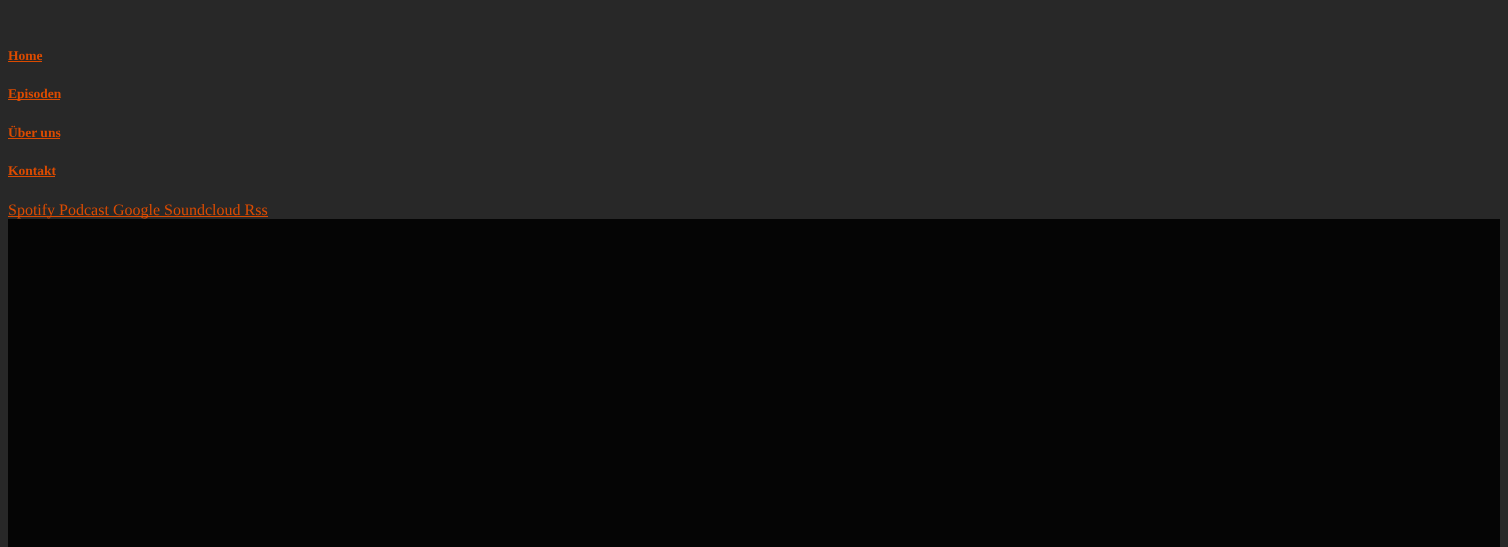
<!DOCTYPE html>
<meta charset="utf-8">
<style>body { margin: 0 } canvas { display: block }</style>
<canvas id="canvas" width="1508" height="547"></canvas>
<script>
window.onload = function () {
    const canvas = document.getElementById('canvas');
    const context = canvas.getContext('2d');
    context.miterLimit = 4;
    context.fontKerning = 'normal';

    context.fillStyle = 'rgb(40, 40, 40)';
    context.fillRect(0, 0, 1508, 547);
    context.fillStyle = 'rgb(220, 75, 0)';
    context.fillRect(8, 61, 34, 1);
    context.fillRect(8, 99, 52, 1);
    context.fillRect(8, 138, 52, 1);
    context.fillRect(8, 176, 47, 1);
    context.fillRect(8, 216, 47, 1);
    context.fillRect(55, 216, 185, 1);
    context.fillRect(240, 216, 28, 1);
    context.fillStyle = 'rgb(5, 5, 5)';
    context.fillRect(8, 219, 1492, 328);
    context.font = 'bold 13.5px Liberation Serif';
    context.fillStyle = 'rgb(220, 75, 0)';
    context.fillText('Home', 8, 60);
    context.fillText('Episoden', 8, 98);
    context.fillText('Über uns', 8, 137);
    context.fillText('Kontakt', 8, 175);
    context.font = '16px Liberation Serif';
    context.fillText('Spotify Podcast', 8, 215);
    context.fillText('Google Soundcloud Rss', 113, 215);
};
</script>
